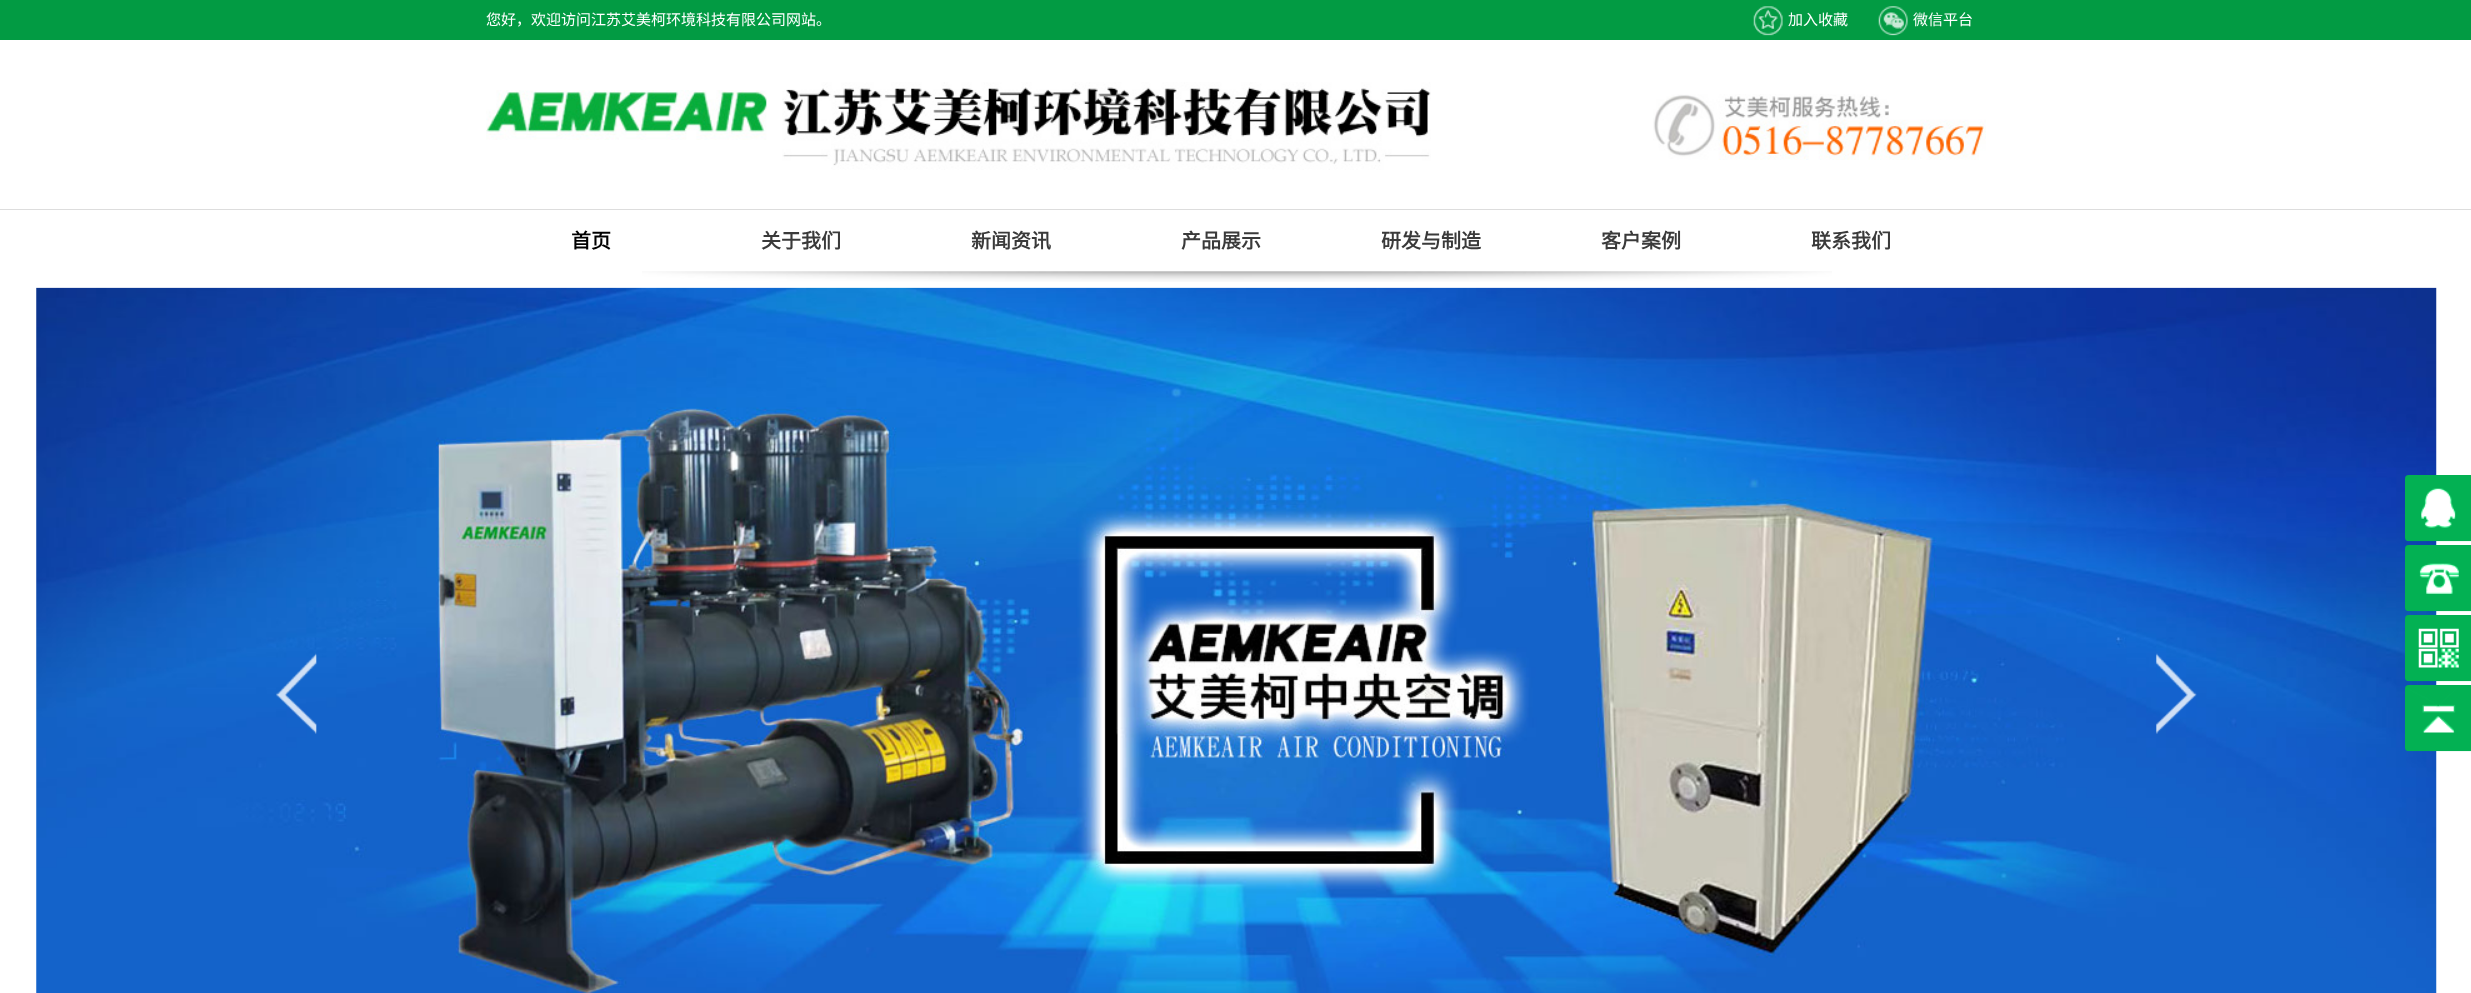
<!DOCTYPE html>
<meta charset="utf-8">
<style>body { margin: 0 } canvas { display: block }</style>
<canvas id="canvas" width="2471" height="993"></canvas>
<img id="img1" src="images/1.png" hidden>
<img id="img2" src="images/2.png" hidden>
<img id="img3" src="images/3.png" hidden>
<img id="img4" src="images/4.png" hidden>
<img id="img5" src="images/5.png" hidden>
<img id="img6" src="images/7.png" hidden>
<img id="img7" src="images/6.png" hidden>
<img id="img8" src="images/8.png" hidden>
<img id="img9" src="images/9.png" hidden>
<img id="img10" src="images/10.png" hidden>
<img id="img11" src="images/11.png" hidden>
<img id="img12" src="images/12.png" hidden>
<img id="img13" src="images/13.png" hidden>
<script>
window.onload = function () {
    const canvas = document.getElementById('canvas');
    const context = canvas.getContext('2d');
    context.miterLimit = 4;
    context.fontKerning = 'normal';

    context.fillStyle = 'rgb(255, 255, 255)';
    context.fillRect(0, 0, 2471, 993);
    context.fillStyle = 'rgb(2, 155, 67)';
    context.fillRect(0, 0, 2471, 40);
    context.drawImage(document.getElementById('img1'), 1753, 6, 30, 30);
    context.drawImage(document.getElementById('img2'), 1878, 6, 30, 30);
    context.fillStyle = 'rgb(221, 221, 221)';
    context.fillRect(0, 209, 2471, 1);
    context.drawImage(document.getElementById('img3'), 486, 90, 281, 50);
    context.drawImage(document.getElementById('img4'), 782, 82, 649, 88);
    context.drawImage(document.getElementById('img5'), 1653, 94, 333, 66);
    context.drawImage(document.getElementById('img6'), 36, 287, 2401, 706);
    context.fillStyle = 'rgba(255, 255, 255, 0.5)';
    context.fillRect(36, 287, 2401, 1);
    context.drawImage(document.getElementById('img7'), 642, 271, 1190, 11);
    context.drawImage(document.getElementById('img8'), 276, 653, 41, 81);
    context.drawImage(document.getElementById('img9'), 2156, 653, 41, 81);
    context.drawImage(document.getElementById('img10'), 2405, 475, 66, 67);
    context.drawImage(document.getElementById('img11'), 2405, 545, 66, 67);
    context.drawImage(document.getElementById('img12'), 2405, 615, 66, 67);
    context.drawImage(document.getElementById('img13'), 2405, 685, 66, 67);
    context.font = '15px Noto Sans CJK SC';
    context.fillStyle = 'rgb(255, 255, 255)';
    context.fillText('您好，欢迎访问江苏艾美柯环境科技有限公司网站。', 486, 25);
    context.fillText('加入收藏', 1788, 25);
    context.fillText('微信平台', 1913, 25);
    context.font = 'bold 20px Noto Sans CJK SC';
    context.fillStyle = 'rgb(0, 0, 0)';
    context.fillText('首页', 571, 248);
    context.fillStyle = 'rgb(58, 58, 58)';
    context.fillText('关于我们', 761, 248);
    context.fillText('新闻资讯', 971, 248);
    context.fillText('产品展示', 1181, 248);
    context.fillText('研发与制造', 1381, 248);
    context.fillText('客户案例', 1601, 248);
    context.fillText('联系我们', 1811, 248);
};
</script>
